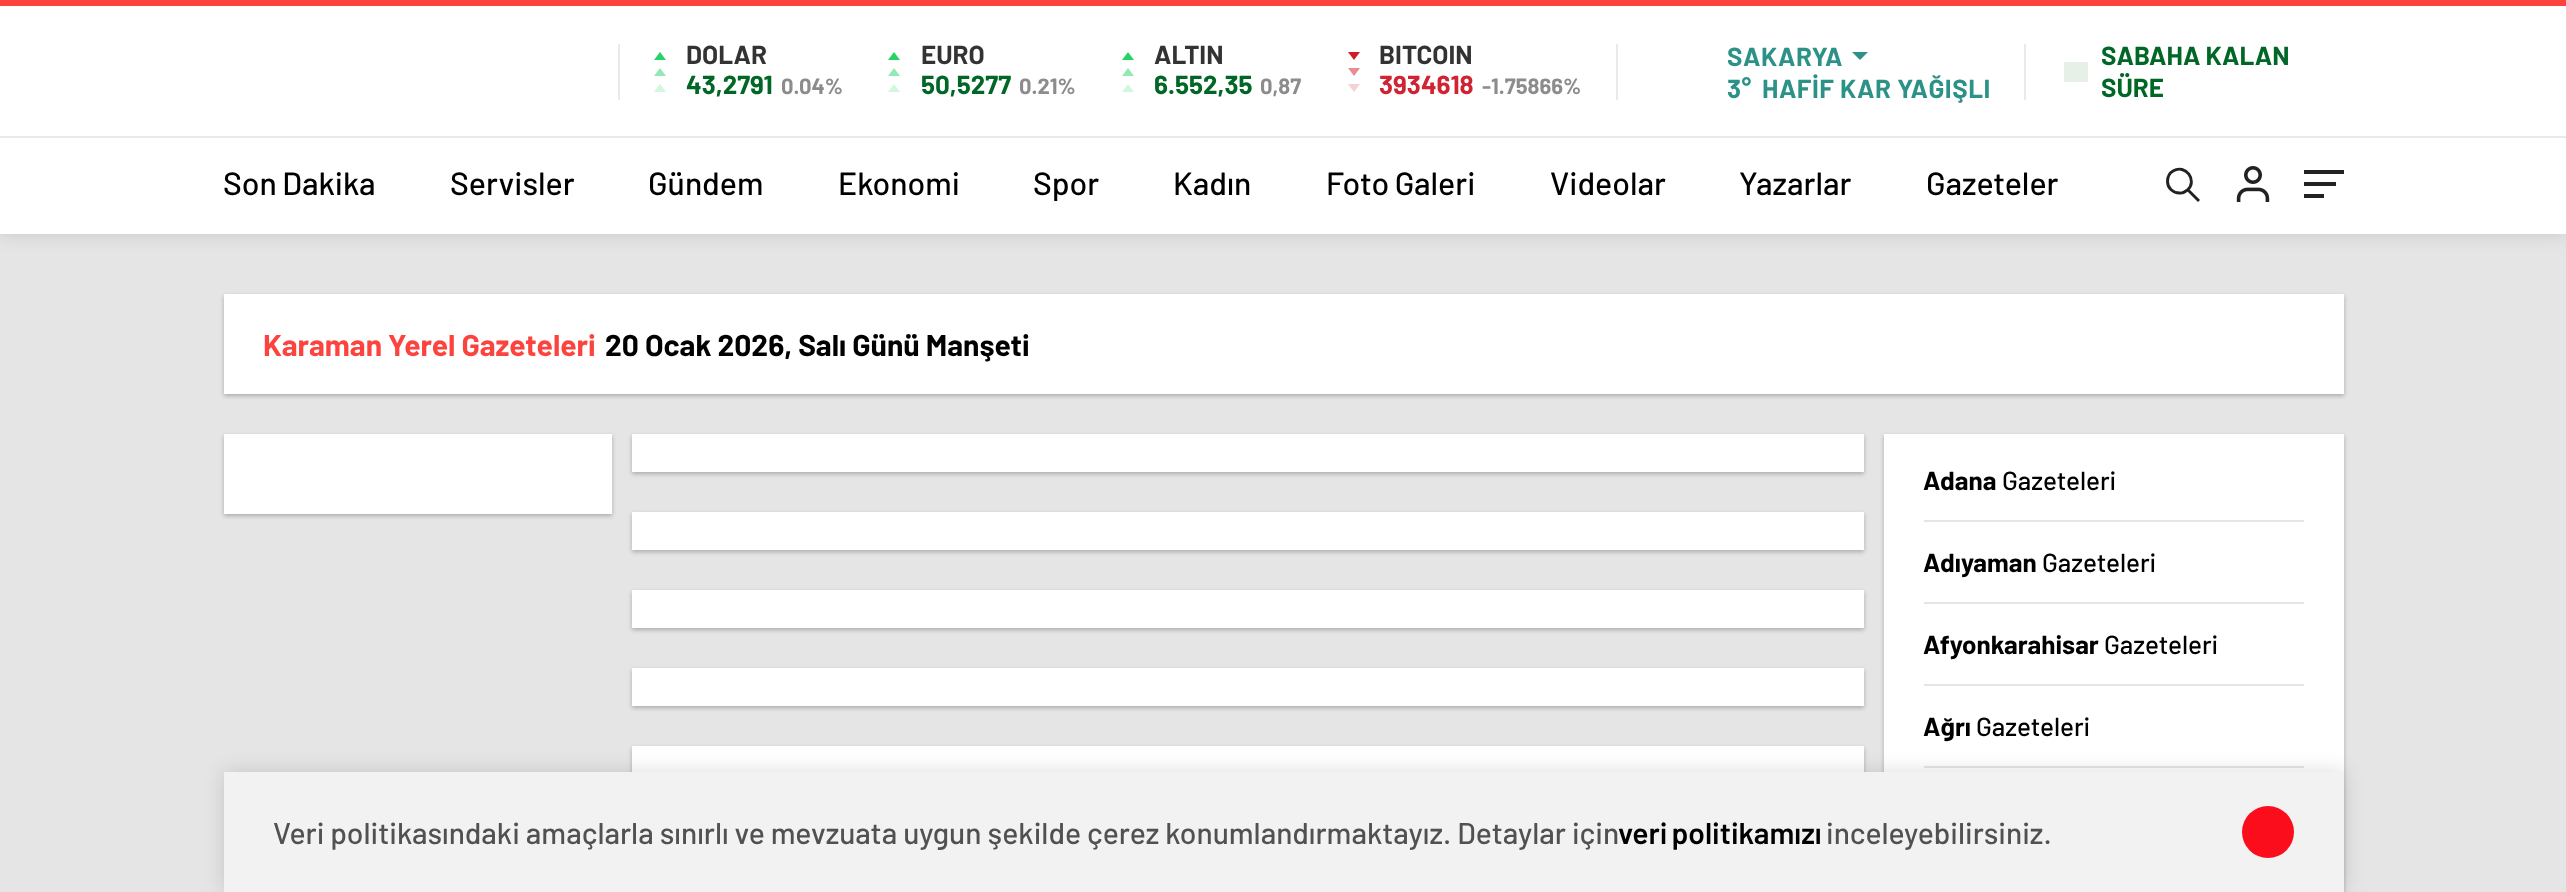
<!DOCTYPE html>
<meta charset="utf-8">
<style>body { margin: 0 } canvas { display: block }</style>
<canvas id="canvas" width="2566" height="892"></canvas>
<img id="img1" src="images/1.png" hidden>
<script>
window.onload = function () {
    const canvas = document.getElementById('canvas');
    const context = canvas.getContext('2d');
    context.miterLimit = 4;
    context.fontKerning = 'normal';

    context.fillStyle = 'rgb(229, 229, 229)';
    context.fillRect(0, 0, 2566, 892);
    context.fillStyle = 'rgba(186, 186, 186, 0.58)';
    context.filter = 'blur(8px)';
    context.beginPath();
    context.rect(0, 2, 2566, 234);
    context.fill();
    context.filter = 'none';
    context.fillStyle = 'rgb(255, 255, 255)';
    context.fillRect(0, 6, 2566, 228);
    context.fillStyle = 'rgb(252, 67, 62)';
    context.fillRect(0, 0, 2566, 6);
    context.fillStyle = 'rgb(233, 233, 233)';
    context.fillRect(618, 44, 2, 56);
    context.fillStyle = 'rgb(37, 211, 102)';
    context.beginPath();
    context.moveTo(666, 60);
    context.lineTo(654, 60);
    context.lineTo(660, 52);
    context.closePath();
    context.fill();
    context.fillStyle = 'rgb(146, 233, 179)';
    context.beginPath();
    context.moveTo(666, 76);
    context.lineTo(654, 76);
    context.lineTo(660, 68);
    context.closePath();
    context.fill();
    context.fillStyle = 'rgb(211, 246, 224)';
    context.beginPath();
    context.moveTo(666, 92);
    context.lineTo(654, 92);
    context.lineTo(660, 84);
    context.closePath();
    context.fill();
    context.fillStyle = 'rgb(37, 211, 102)';
    context.beginPath();
    context.moveTo(900, 60);
    context.lineTo(888, 60);
    context.lineTo(894, 52);
    context.closePath();
    context.fill();
    context.fillStyle = 'rgb(146, 233, 179)';
    context.beginPath();
    context.moveTo(900, 76);
    context.lineTo(888, 76);
    context.lineTo(894, 68);
    context.closePath();
    context.fill();
    context.fillStyle = 'rgb(211, 246, 224)';
    context.beginPath();
    context.moveTo(900, 92);
    context.lineTo(888, 92);
    context.lineTo(894, 84);
    context.closePath();
    context.fill();
    context.fillStyle = 'rgb(37, 211, 102)';
    context.beginPath();
    context.moveTo(1134, 60);
    context.lineTo(1122, 60);
    context.lineTo(1128, 52);
    context.closePath();
    context.fill();
    context.fillStyle = 'rgb(146, 233, 179)';
    context.beginPath();
    context.moveTo(1134, 76);
    context.lineTo(1122, 76);
    context.lineTo(1128, 68);
    context.closePath();
    context.fill();
    context.fillStyle = 'rgb(211, 246, 224)';
    context.beginPath();
    context.moveTo(1134, 92);
    context.lineTo(1122, 92);
    context.lineTo(1128, 84);
    context.closePath();
    context.fill();
    context.fillStyle = 'rgb(209, 26, 39)';
    context.beginPath();
    context.moveTo(1348, 52);
    context.lineTo(1360, 52);
    context.lineTo(1354, 60);
    context.closePath();
    context.fill();
    context.fillStyle = 'rgb(232, 141, 147)';
    context.beginPath();
    context.moveTo(1348, 68);
    context.lineTo(1360, 68);
    context.lineTo(1354, 76);
    context.closePath();
    context.fill();
    context.fillStyle = 'rgb(246, 209, 212)';
    context.beginPath();
    context.moveTo(1348, 84);
    context.lineTo(1360, 84);
    context.lineTo(1354, 92);
    context.closePath();
    context.fill();
    context.fillStyle = 'rgb(233, 233, 233)';
    context.fillRect(1616, 44, 2, 56);
    context.fillStyle = 'rgb(44, 146, 135)';
    context.beginPath();
    context.moveTo(1852, 52);
    context.lineTo(1868, 52);
    context.lineTo(1860, 60);
    context.closePath();
    context.fill();
    context.fillStyle = 'rgb(233, 233, 233)';
    context.fillRect(2024, 44, 2, 56);
    context.fillStyle = 'rgb(230, 240, 231)';
    context.fillRect(2064, 62, 24, 20);
    context.fillStyle = 'rgb(233, 233, 233)';
    context.fillRect(0, 136, 2566, 2);
    context.beginPath();
    context.moveTo(2188.5, 190.5);
    context.lineTo(2199, 201);
    context.closePath();
    context.moveTo(2167.5, 181.5);
    context.bezierCurveTo(2167.5, 177, 2169.5, 173, 2173, 171);
    context.bezierCurveTo(2185.5, 163.5, 2198, 180.5, 2187.5, 190);
    context.bezierCurveTo(2185, 192, 2182.5, 193.5, 2179.5, 193);
    context.bezierCurveTo(2173, 193, 2167.5, 188, 2167.5, 181.5);
    context.closePath();
    context.strokeStyle = 'rgb(34, 34, 34)';
    context.lineWidth = 2.9;
    context.lineCap = 'round';
    context.stroke();
    context.drawImage(document.getElementById('img1'), 2236, 166, 34, 36);
    context.fillStyle = 'rgb(34, 34, 34)';
    context.fillRect(2304, 170, 40, 4);
    context.fillRect(2304, 182, 32, 4);
    context.fillRect(2304, 194, 20, 4);
    context.fillStyle = 'rgba(17, 21, 25, 0.27)';
    context.filter = 'blur(2px)';
    context.beginPath();
    context.rect(224, 296, 2120, 100);
    context.fill();
    context.filter = 'none';
    context.fillStyle = 'rgb(255, 255, 255)';
    context.fillRect(224, 294, 2120, 100);
    context.fillStyle = 'rgba(17, 21, 25, 0.27)';
    context.filter = 'blur(2px)';
    context.beginPath();
    context.rect(224, 436, 388, 80);
    context.fill();
    context.filter = 'none';
    context.fillStyle = 'rgb(255, 255, 255)';
    context.fillRect(224, 434, 388, 80);
    context.fillStyle = 'rgba(17, 21, 25, 0.27)';
    context.filter = 'blur(2px)';
    context.beginPath();
    context.rect(632, 436, 1232, 38);
    context.fill();
    context.filter = 'none';
    context.fillStyle = 'rgb(255, 255, 255)';
    context.fillRect(632, 434, 1232, 38);
    context.fillStyle = 'rgba(17, 21, 25, 0.27)';
    context.filter = 'blur(2px)';
    context.beginPath();
    context.rect(632, 514, 1232, 38);
    context.fill();
    context.filter = 'none';
    context.fillStyle = 'rgb(255, 255, 255)';
    context.fillRect(632, 512, 1232, 38);
    context.fillStyle = 'rgba(17, 21, 25, 0.27)';
    context.filter = 'blur(2px)';
    context.beginPath();
    context.rect(632, 592, 1232, 38);
    context.fill();
    context.filter = 'none';
    context.fillStyle = 'rgb(255, 255, 255)';
    context.fillRect(632, 590, 1232, 38);
    context.fillStyle = 'rgba(17, 21, 25, 0.27)';
    context.filter = 'blur(2px)';
    context.beginPath();
    context.rect(632, 670, 1232, 38);
    context.fill();
    context.filter = 'none';
    context.fillStyle = 'rgb(255, 255, 255)';
    context.fillRect(632, 668, 1232, 38);
    context.fillStyle = 'rgba(17, 21, 25, 0.27)';
    context.filter = 'blur(2px)';
    context.beginPath();
    context.rect(632, 748, 1232, 38);
    context.fill();
    context.filter = 'none';
    context.fillStyle = 'rgb(255, 255, 255)';
    context.fillRect(632, 746, 1232, 26);
    context.fillStyle = 'rgba(17, 21, 25, 0.27)';
    context.filter = 'blur(2px)';
    context.beginPath();
    context.rect(1884, 436, 460, 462);
    context.fill();
    context.filter = 'none';
    context.fillStyle = 'rgb(255, 255, 255)';
    context.fillRect(1884, 434, 460, 338);
    context.fillStyle = 'rgb(229, 229, 229)';
    context.fillRect(1924, 520, 380, 2);
    context.fillRect(1924, 602, 380, 2);
    context.fillRect(1924, 684, 380, 2);
    context.fillRect(1924, 766, 380, 2);
    context.fillStyle = 'rgba(34, 34, 34, 0.16)';
    context.filter = 'blur(10px)';
    context.beginPath();
    context.rect(224, 772, 2120, 120);
    context.fill();
    context.filter = 'none';
    context.fillStyle = 'rgb(242, 242, 242)';
    context.fillRect(224, 772, 2120, 120);
    context.fillStyle = 'rgb(251, 13, 27)';
    context.beginPath();
    context.arc(2268, 832, 26, 0, 2 * Math.PI);
    context.fill();
    context.font = 'bold 26px Barlow';
    context.fillStyle = 'rgb(51, 51, 51)';
    context.fillText('DOLAR', 686, 64);
    context.fillStyle = 'rgb(0, 103, 38)';
    context.fillText('43,2791', 686, 94);
    context.font = 'bold 22px Barlow';
    context.fillStyle = 'rgb(140, 140, 140)';
    context.fillText('0.04%', 781, 94);
    context.font = 'bold 26px Barlow';
    context.fillStyle = 'rgb(51, 51, 51)';
    context.fillText('EURO', 921, 64);
    context.fillStyle = 'rgb(0, 103, 38)';
    context.fillText('50,5277', 921, 94);
    context.font = 'bold 22px Barlow';
    context.fillStyle = 'rgb(140, 140, 140)';
    context.fillText('0.21%', 1019, 94);
    context.font = 'bold 26px Barlow';
    context.fillStyle = 'rgb(51, 51, 51)';
    context.fillText('ALTIN', 1154, 64);
    context.fillStyle = 'rgb(0, 103, 38)';
    context.fillText('6.552,35', 1154, 94);
    context.font = 'bold 22px Barlow';
    context.fillStyle = 'rgb(140, 140, 140)';
    context.fillText('0,87', 1260, 94);
    context.font = 'bold 26px Barlow';
    context.fillStyle = 'rgb(51, 51, 51)';
    context.fillText('BITCOIN', 1379, 64);
    context.fillStyle = 'rgb(208, 35, 51)';
    context.fillText('3934618', 1379, 94);
    context.font = 'bold 22px Barlow';
    context.fillStyle = 'rgb(140, 140, 140)';
    context.fillText('-1.75866%', 1482, 94);
    context.letterSpacing = '0.5px';
    context.font = 'bold 26px Barlow';
    context.fillStyle = 'rgb(44, 146, 135)';
    context.fillText('SAKARYA', 1727, 66);
    context.fillText('3°', 1727, 98);
    context.fillText('HAFİF KAR YAĞIŞLI', 1762, 98);
    context.letterSpacing = '0px';
    context.fillStyle = 'rgb(0, 103, 38)';
    context.fillText('SABAHA KALAN', 2101, 65);
    context.fillText('SÜRE', 2101, 97);
    context.wordSpacing = '-1px';
    context.font = '500 32px Barlow';
    context.fillStyle = 'rgb(0, 0, 0)';
    context.fillText('Son Dakika', 223, 195);
    context.wordSpacing = '0px';
    context.fillText('Servisler', 450, 195);
    context.fillText('Gündem', 648, 195);
    context.fillText('Ekonomi', 838, 195);
    context.fillText('Spor', 1033, 195);
    context.fillText('Kadın', 1173, 195);
    context.wordSpacing = '-1px';
    context.fillText('Foto Galeri', 1326, 195);
    context.wordSpacing = '0px';
    context.fillText('Videolar', 1550, 195);
    context.fillText('Yazarlar', 1739, 195);
    context.fillText('Gazeteler', 1926, 195);
    context.font = 'bold 30px Barlow';
    context.fillStyle = 'rgb(252, 67, 62)';
    context.fillText('Karaman Yerel Gazeteleri', 263, 356);
    context.fillStyle = 'rgb(0, 0, 0)';
    context.fillText('20 Ocak 2026, Salı Günü Manşeti', 605, 356);
    context.font = 'bold 26px Barlow';
    context.fillText('Adana', 1923, 490);
    context.font = '500 26px Barlow';
    context.fillText('Gazeteleri', 2002, 490);
    context.font = 'bold 26px Barlow';
    context.fillText('Adıyaman', 1923, 572);
    context.font = '500 26px Barlow';
    context.fillText('Gazeteleri', 2042, 572);
    context.font = 'bold 26px Barlow';
    context.fillText('Afyonkarahisar', 1923, 654);
    context.font = '500 26px Barlow';
    context.fillText('Gazeteleri', 2104, 654);
    context.font = 'bold 26px Barlow';
    context.fillText('Ağrı', 1923, 736);
    context.font = '500 26px Barlow';
    context.fillText('Gazeteleri', 1976, 736);
    context.font = '500 30px Barlow';
    context.fillStyle = 'rgb(81, 81, 81)';
    context.fillText('Veri politikasındaki amaçlarla sınırlı ve mevzuata uygun şekilde çerez konumlandırmaktayız. Detaylar için', 273, 844);
    context.wordSpacing = '-2px';
    context.font = '600 30px Barlow';
    context.fillStyle = 'rgb(0, 0, 0)';
    context.fillText('veri politikamızı', 1618, 844);
    context.wordSpacing = '0px';
    context.font = '500 30px Barlow';
    context.fillStyle = 'rgb(81, 81, 81)';
    context.fillText('inceleyebilirsiniz.', 1826, 844);
};
</script>
